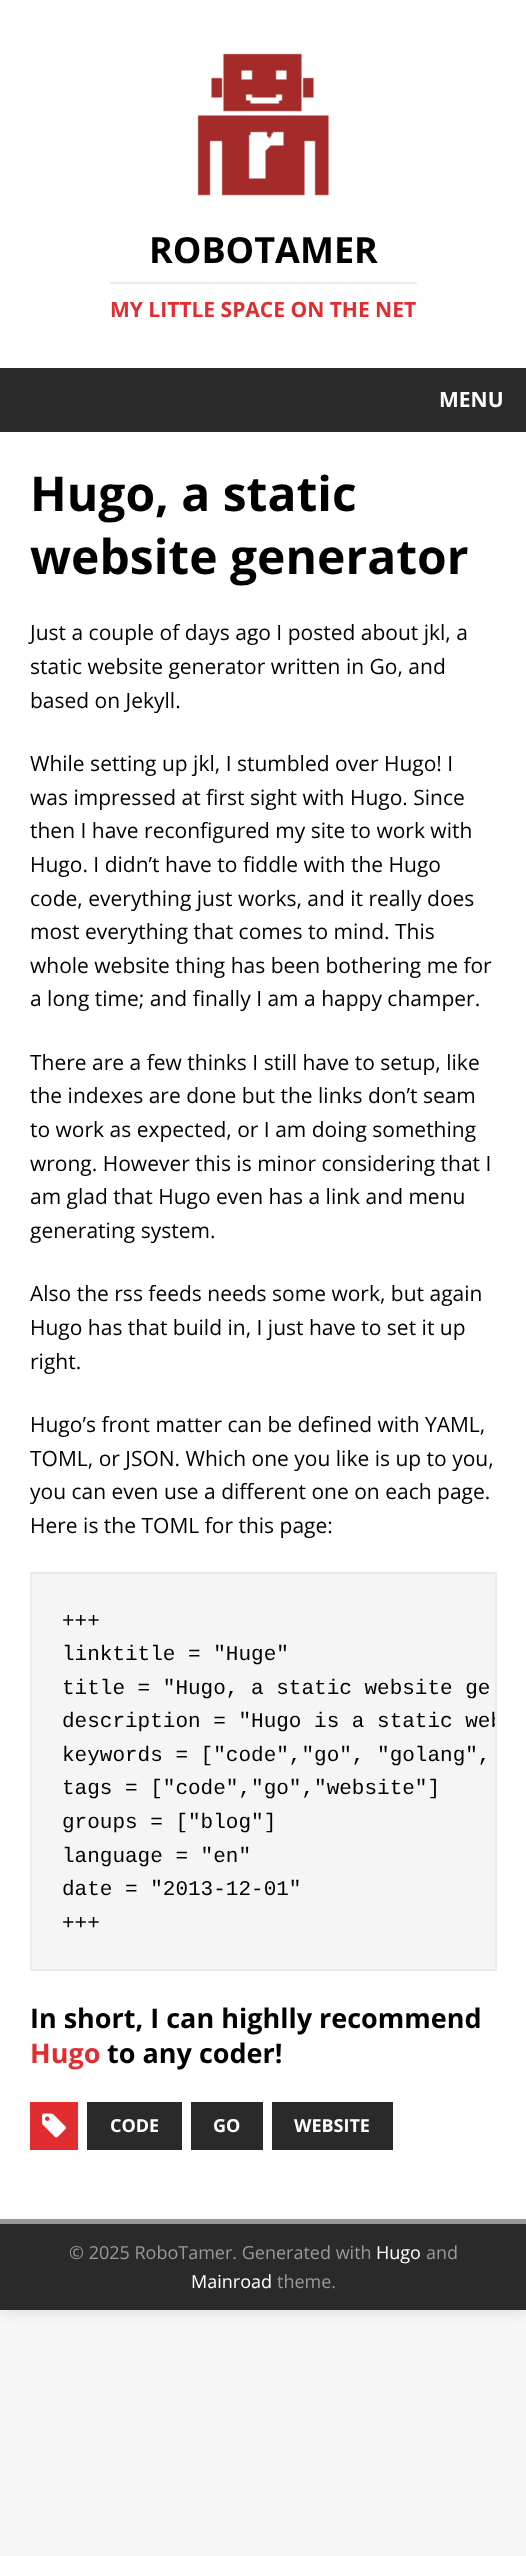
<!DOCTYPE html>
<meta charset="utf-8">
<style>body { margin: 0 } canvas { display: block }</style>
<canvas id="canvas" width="526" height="2556"></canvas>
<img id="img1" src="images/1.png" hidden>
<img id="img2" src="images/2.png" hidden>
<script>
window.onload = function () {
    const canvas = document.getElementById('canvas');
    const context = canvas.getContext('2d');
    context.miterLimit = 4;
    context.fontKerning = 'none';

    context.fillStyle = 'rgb(247, 247, 247)';
    context.fillRect(0, 0, 526, 2556);
    context.fillStyle = 'rgba(50, 50, 50, 0.17)';
    context.filter = 'blur(7.5px)';
    context.beginPath();
    context.rect(0, 0, 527, 2310);
    context.fill();
    context.filter = 'none';
    context.fillStyle = 'rgb(255, 255, 255)';
    context.fillRect(0, 0, 526, 368);
    context.drawImage(document.getElementById('img1'), 197, 53, 132, 143);
    context.fillStyle = 'rgb(235, 235, 235)';
    context.fillRect(110, 282, 307, 2);
    context.fillStyle = 'rgb(42, 42, 42)';
    context.fillRect(0, 368, 526, 64);
    context.fillStyle = 'rgb(255, 255, 255)';
    context.fillRect(0, 432, 526, 1787);
    context.fillStyle = 'rgb(245, 245, 245)';
    context.beginPath();
    context.rect(31, 1573, 465, 397);
    context.fill();
    context.strokeStyle = 'rgb(235, 235, 235)';
    context.lineWidth = 2;
    context.stroke();
    context.fillStyle = 'rgb(226, 45, 48)';
    context.fillRect(30, 2102, 48, 48);
    context.drawImage(document.getElementById('img2'), 42, 2113, 24, 25);
    context.fillStyle = 'rgb(42, 42, 42)';
    context.fillRect(87, 2102, 95, 48);
    context.fillRect(191, 2102, 72, 48);
    context.fillRect(272, 2102, 121, 48);
    context.fillRect(0, 2224, 526, 86);
    context.fillStyle = 'rgb(153, 153, 153)';
    context.fillRect(0, 2219, 526, 5);
    context.font = 'bold 36px Open Sans';
    context.fillStyle = 'rgb(0, 0, 0)';
    context.fillText('ROBOTAMER', 149, 263);
    context.font = 'bold 21px Open Sans';
    context.fillStyle = 'rgb(226, 45, 48)';
    context.fillText('MY LITTLE SPACE ON THE NET', 110, 317);
    context.fillStyle = 'rgb(255, 255, 255)';
    context.fillText('MENU', 439, 407);
    context.font = 'bold 48px Open Sans';
    context.fillStyle = 'rgb(0, 0, 0)';
    context.fillText('Hugo, a static', 30, 511);
    context.fillText('website generator', 30, 574);
    context.font = '21px Open Sans';
    context.fillText('Just a couple of days ago I posted about jkl, a', 30, 640);
    context.fillText('static website generator written in Go, and', 30, 674);
    context.fillText('based on Jekyll.', 30, 708);
    context.fillText('While setting up jkl, I stumbled over Hugo! I', 30, 771);
    context.fillText('was impressed at first sight with Hugo. Since', 30, 805);
    context.fillText('then I have reconfigured my site to work with', 30, 838);
    context.fillText('Hugo. I didn’t have to fiddle with the Hugo', 30, 872);
    context.fillText('code, everything just works, and it really does', 30, 906);
    context.fillText('most everything that comes to mind. This', 30, 939);
    context.fillText('whole website thing has been bothering me for', 30, 973);
    context.fillText('a long time; and finally I am a happy champer.', 30, 1006);
    context.fillText('There are a few thinks I still have to setup, like', 30, 1070);
    context.fillText('the indexes are done but the links don’t seam', 30, 1103);
    context.fillText('to work as expected, or I am doing something', 30, 1137);
    context.fillText('wrong. However this is minor considering that I', 30, 1171);
    context.fillText('am glad that Hugo even has a link and menu', 30, 1204);
    context.fillText('generating system.', 30, 1238);
    context.fillText('Also the rss feeds needs some work, but again', 30, 1301);
    context.fillText('Hugo has that build in, I just have to set it up', 30, 1335);
    context.fillText('right.', 30, 1369);
    context.fillText('Hugo’s front matter can be defined with YAML,', 30, 1432);
    context.fillText('TOML, or JSON. Which one you like is up to you,', 30, 1466);
    context.fillText('you can even use a different one on each page.', 30, 1499);
    context.fillText('Here is the TOML for this page:', 30, 1533);
    context.font = '21px Liberation Mono';
    context.fillText('+++', 62, 1627);
    context.fillText('linktitle = "Huge"', 62, 1660);
    context.fillText('title = "Hugo, a static website ge', 62, 1694);
    context.save();
    context.beginPath();
    context.rect(32, 1574, 463, 396);
    context.clip();
    context.fillText('description = "Hugo is a static web', 62, 1727);
    context.restore();
    context.fillText('keywords = ["code","go", "golang",', 62, 1761);
    context.fillText('tags = ["code","go","website"]', 62, 1794);
    context.fillText('groups = ["blog"]', 62, 1828);
    context.fillText('language = "en"', 62, 1862);
    context.fillText('date = "2013-12-01"', 62, 1895);
    context.fillText('+++', 62, 1929);
    context.font = 'bold 27px Open Sans';
    context.fillText('In short, I can highlly recommend', 30, 2028);
    context.fillStyle = 'rgb(226, 45, 48)';
    context.fillText('Hugo', 30, 2063);
    context.fillStyle = 'rgb(0, 0, 0)';
    context.fillText('to any coder!', 107, 2063);
    context.font = 'bold 18px Open Sans';
    context.fillStyle = 'rgb(255, 255, 255)';
    context.fillText('CODE', 110, 2132);
    context.fillText('GO', 213, 2132);
    context.fillText('WEBSITE', 294, 2132);
    context.font = '18px Open Sans';
    context.fillStyle = 'rgb(153, 153, 153)';
    context.fillText('© 2025 RoboTamer. Generated with', 69, 2259);
    context.fillStyle = 'rgb(255, 255, 255)';
    context.fillText('Hugo', 376, 2259);
    context.fillStyle = 'rgb(153, 153, 153)';
    context.fillText('and', 426, 2259);
    context.fillStyle = 'rgb(255, 255, 255)';
    context.fillText('Mainroad', 191, 2288);
    context.fillStyle = 'rgb(153, 153, 153)';
    context.fillText('theme.', 277, 2288);
};
</script>
